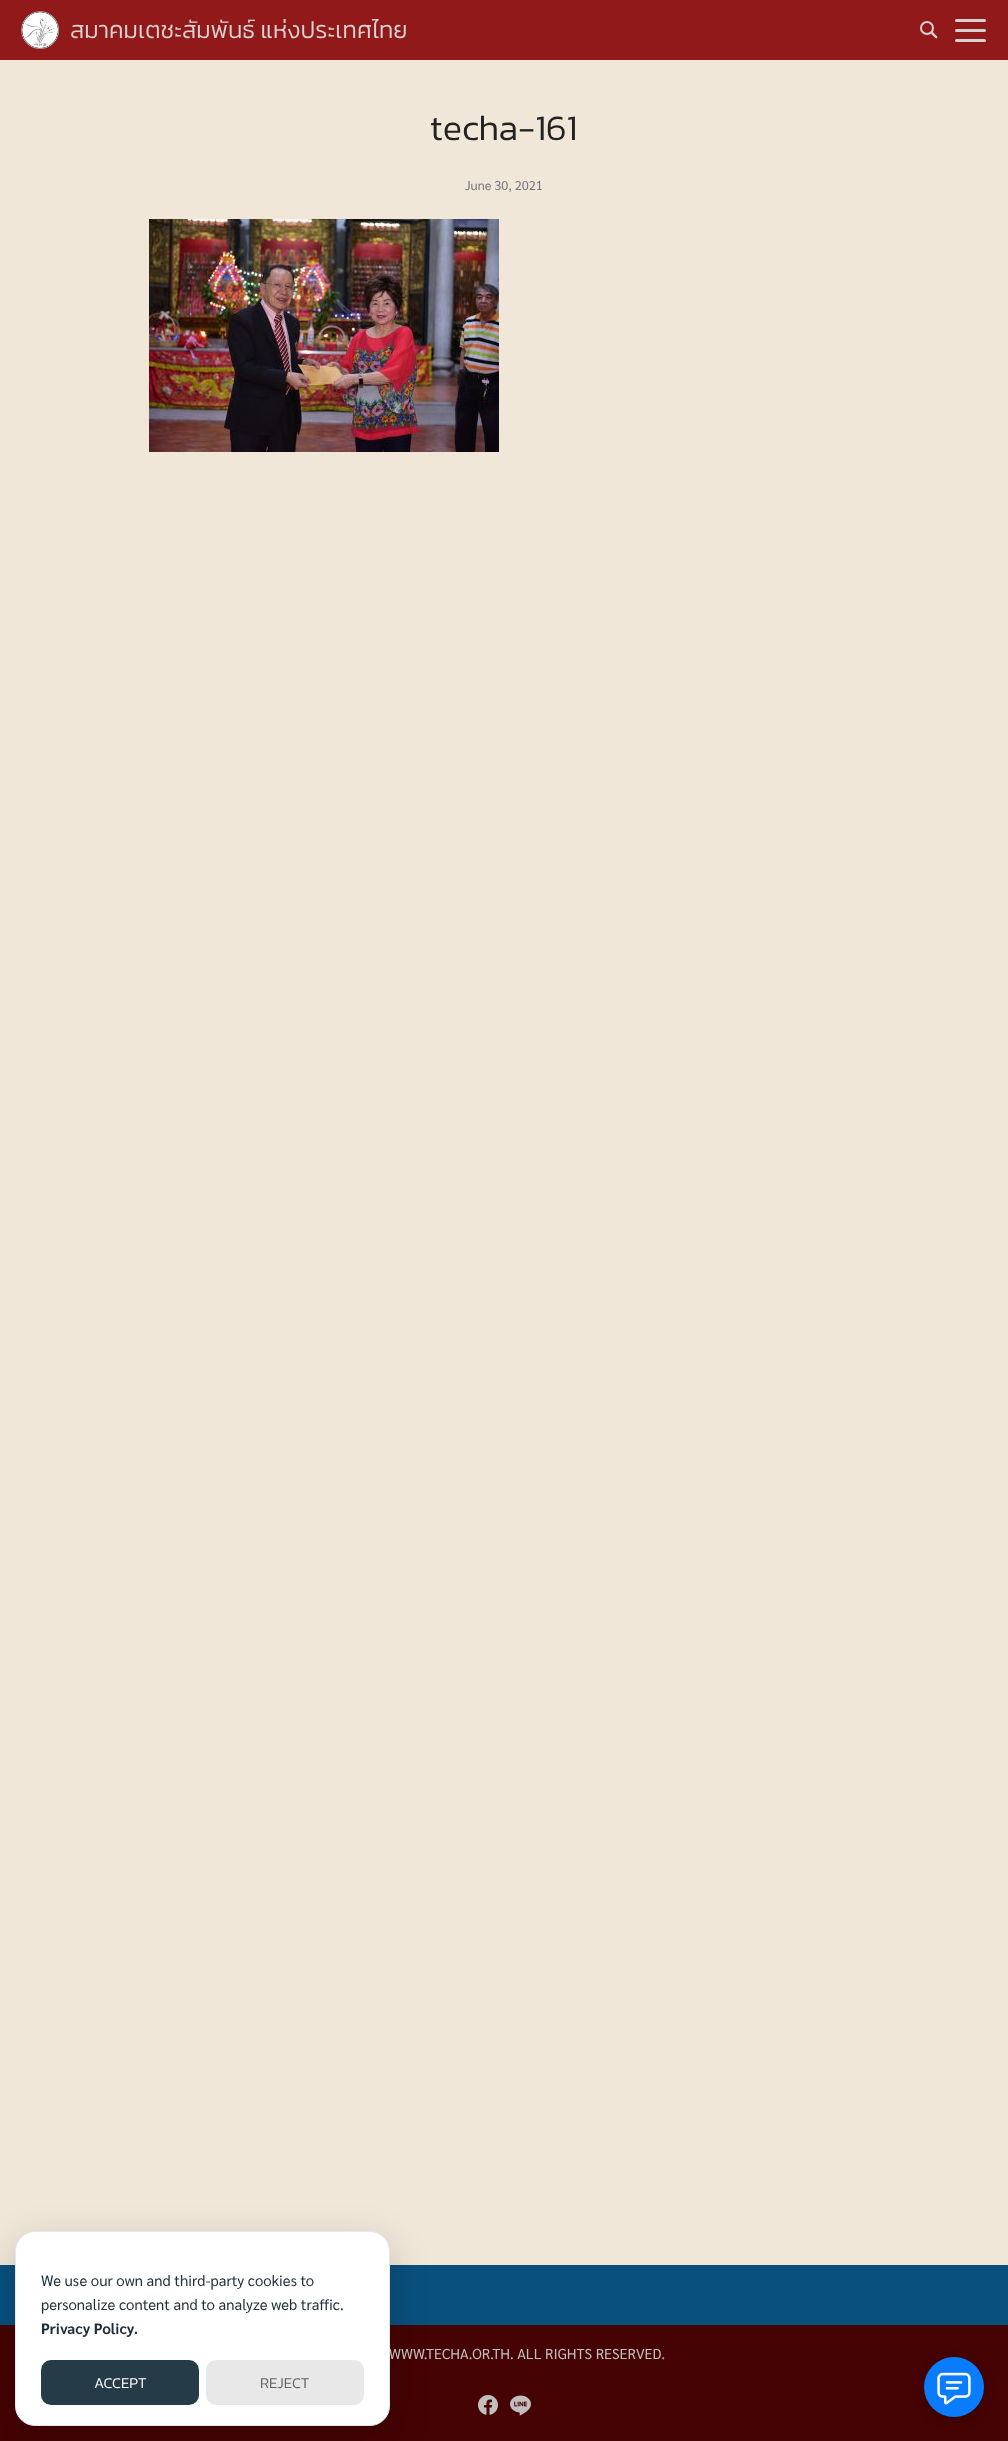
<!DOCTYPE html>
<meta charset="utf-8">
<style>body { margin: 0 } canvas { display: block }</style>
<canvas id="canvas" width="1008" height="2441"></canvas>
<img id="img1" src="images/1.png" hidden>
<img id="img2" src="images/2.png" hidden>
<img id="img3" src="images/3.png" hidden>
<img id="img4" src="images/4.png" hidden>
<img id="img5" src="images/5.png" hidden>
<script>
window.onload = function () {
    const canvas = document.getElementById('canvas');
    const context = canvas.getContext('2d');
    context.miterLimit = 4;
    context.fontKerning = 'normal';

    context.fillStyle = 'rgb(241, 231, 217)';
    context.fillRect(0, 0, 1008, 2441);
    context.fillStyle = 'rgb(145, 25, 25)';
    context.fillRect(0, 0, 1008, 60);
    context.drawImage(document.getElementById('img1'), 21, 11, 38, 38);
    context.fillStyle = 'rgb(215, 209, 209)';
    context.beginPath();
    context.moveTo(931.5, 32.5);
    context.bezierCurveTo(932.5, 31, 934.5, 34, 935, 34.5);
    context.bezierCurveTo(935.5, 35, 938.5, 37, 937, 38);
    context.bezierCurveTo(936, 39.5, 934, 36.5, 933.5, 36);
    context.bezierCurveTo(933, 35.5, 930, 33.5, 931.5, 32.5);
    context.closePath();
    context.fill();
    context.beginPath();
    context.arc(927, 28, 6, 0, 2 * Math.PI);
    context.strokeStyle = 'rgb(215, 209, 209)';
    context.lineWidth = 2;
    context.stroke();
    context.beginPath();
    context.roundRect(955, 29, 31, 3, 1.5);
    context.fill();
    context.beginPath();
    context.roundRect(955, 19, 31, 3, 1.5);
    context.fill();
    context.beginPath();
    context.roundRect(955, 39, 31, 3, 1.5);
    context.fill();
    context.drawImage(document.getElementById('img2'), 149, 219, 350, 233);
    context.fillStyle = 'rgb(10, 80, 127)';
    context.fillRect(0, 2265, 1008, 60);
    context.fillStyle = 'rgb(70, 3, 3)';
    context.fillRect(0, 2325, 1008, 116);
    context.drawImage(document.getElementById('img3'), 478, 2395, 20, 20);
    context.drawImage(document.getElementById('img4'), 510, 2395, 21, 21);
    context.fillStyle = 'rgba(0, 0, 0, 0.15)';
    context.filter = 'blur(6px)';
    context.beginPath();
    context.roundRect(924, 2361, 60, 60, 30);
    context.fill();
    context.filter = 'none';
    context.fillStyle = 'rgb(10, 124, 255)';
    context.beginPath();
    context.arc(954, 2387, 30, 0, 2 * Math.PI);
    context.fill();
    context.drawImage(document.getElementById('img5'), 937, 2372, 34, 33);
    context.fillStyle = 'rgba(2, 2, 3, 0.2)';
    context.filter = 'blur(19px)';
    context.beginPath();
    context.roundRect(15, 2244, 375, 195, 20);
    context.fill();
    context.filter = 'none';
    context.font = '300 24px Kanit';
    context.fillStyle = 'rgb(215, 209, 209)';
    context.fillText('สมาคมเตชะสัมพันธ์ แห่งประเทศไทย', 70, 38);
    context.font = '300 36px Kanit';
    context.fillStyle = 'rgb(34, 34, 34)';
    context.fillText('techa-161', 430, 140);
    context.font = '12.75px Sarabun';
    context.fillStyle = 'rgb(113, 118, 127)';
    context.fillText('June 30, 2021', 465, 190);
    context.font = '14.4px Sarabun';
    context.fillStyle = 'rgb(194, 190, 190)';
    context.fillText('WWW.TECHA.OR.TH. ALL RIGHTS RESERVED.', 389, 2359);
    context.fillStyle = 'rgb(255, 255, 255)';
    context.beginPath();
    context.roundRect(15.5, 2231.5, 374, 194, 19.5);
    context.fill();
    context.strokeStyle = 'rgb(230, 230, 230)';
    context.lineWidth = 1;
    context.stroke();
    context.font = '15px Sarabun';
    context.fillStyle = 'rgb(29, 46, 56)';
    context.fillText('We use our own and third-party cookies to', 41, 2286);
    context.fillText('personalize content and to analyze web traffic.', 41, 2310);
    context.font = 'bold 15px Sarabun';
    context.fillText('Privacy Policy.', 41, 2334);
    context.fillStyle = 'rgb(37, 59, 72)';
    context.beginPath();
    context.roundRect(41, 2360, 158, 45, 10);
    context.fill();
    context.font = '300 15px Kanit';
    context.fillStyle = 'rgb(255, 255, 255)';
    context.fillText('ACCEPT', 94, 2388);
    context.fillStyle = 'rgb(232, 232, 232)';
    context.beginPath();
    context.roundRect(206, 2360, 158, 45, 10);
    context.fill();
    context.fillStyle = 'rgb(99, 99, 99)';
    context.fillText('REJECT', 260, 2388);
};
</script>
